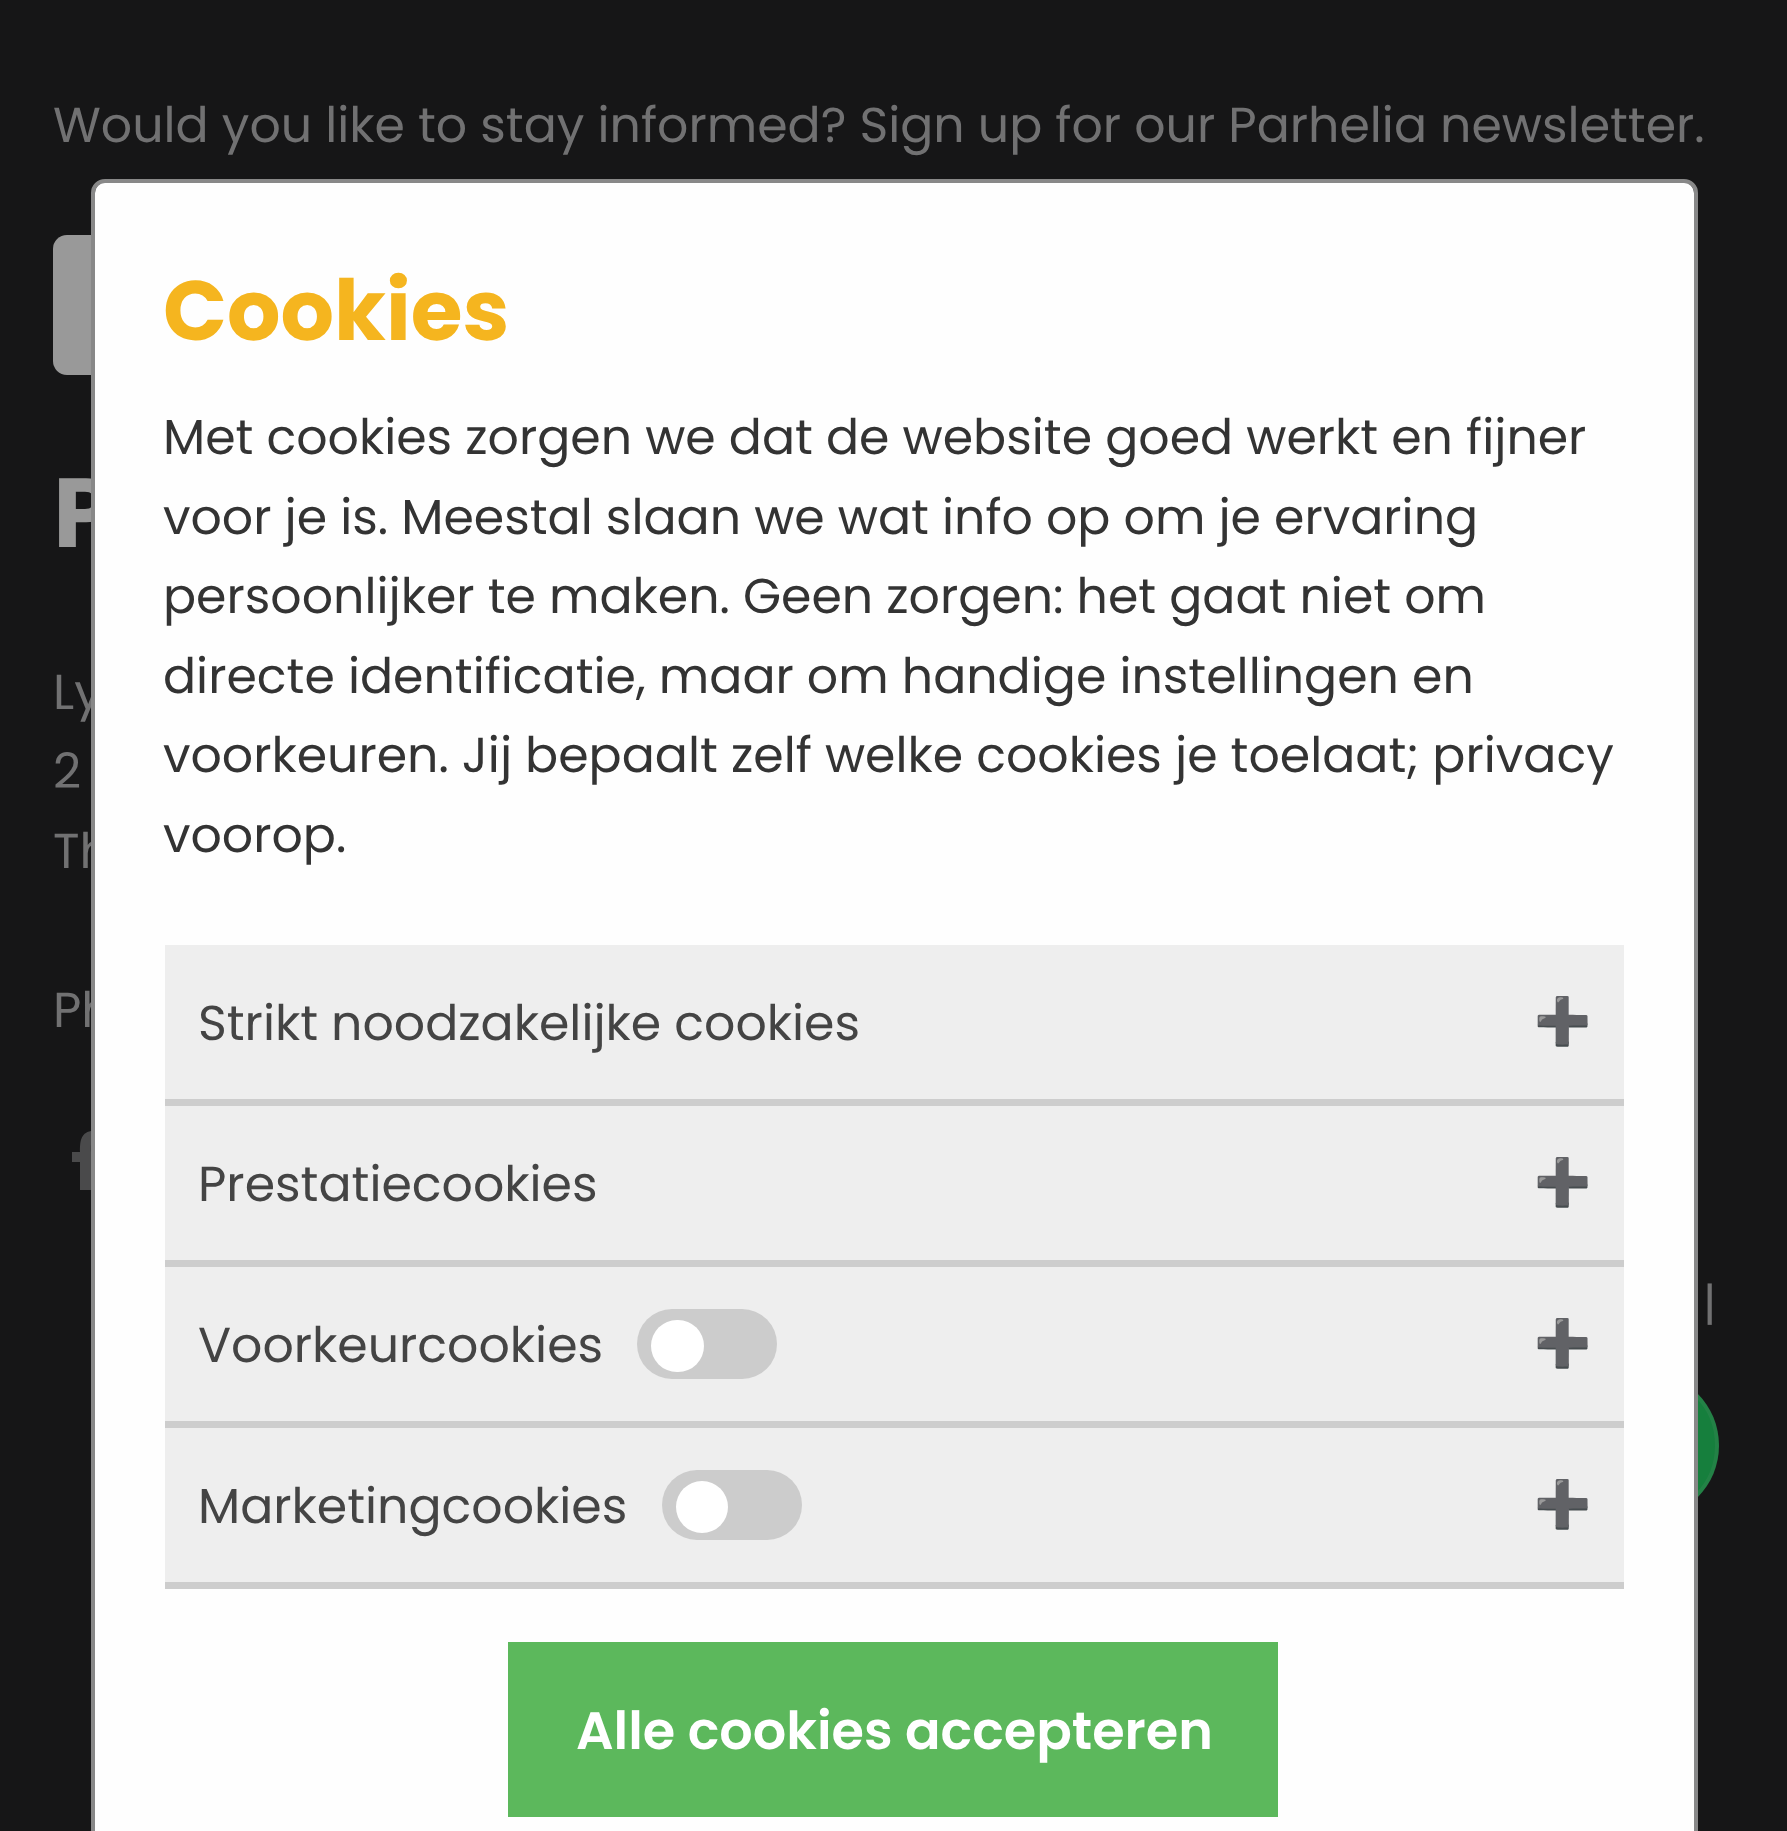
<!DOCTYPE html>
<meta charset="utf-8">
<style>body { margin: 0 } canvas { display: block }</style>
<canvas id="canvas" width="1787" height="1831"></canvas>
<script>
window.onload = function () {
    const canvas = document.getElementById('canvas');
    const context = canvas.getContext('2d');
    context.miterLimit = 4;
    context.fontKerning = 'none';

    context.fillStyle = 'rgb(22, 22, 23)';
    context.fillRect(0, 0, 1787, 1831);
    context.fillStyle = 'rgb(153, 153, 153)';
    context.beginPath();
    context.roundRect(53, 235, 441, 140, 14);
    context.fill();
    context.fillStyle = 'rgb(74, 74, 75)';
    context.beginPath();
    context.moveTo(91, 1162);
    context.lineTo(100, 1162);
    context.lineTo(102, 1152);
    context.lineTo(91, 1152);
    context.bezierCurveTo(91, 1141, 90, 1140, 102, 1140);
    context.lineTo(102, 1131);
    context.lineTo(91, 1131);
    context.bezierCurveTo(80, 1133, 80, 1143, 80, 1152);
    context.lineTo(72, 1152);
    context.lineTo(72, 1162);
    context.lineTo(80, 1162);
    context.lineTo(80, 1190);
    context.lineTo(91, 1190);
    context.closePath();
    context.fill();
    context.fillStyle = 'rgb(22, 127, 61)';
    context.beginPath();
    context.arc(1645.5, 1445.5, 73.5, 0, 2 * Math.PI);
    context.fill();
    context.beginPath();
    context.arc(1645.5, 1445.5, 71.5, 0, 2 * Math.PI);
    context.strokeStyle = 'rgba(153, 153, 153, 0.1)';
    context.lineWidth = 4;
    context.stroke();
    context.font = '49px Poppins';
    context.fillStyle = 'rgb(113, 113, 114)';
    context.fillText('Would you like to stay informed? Sign up for our Parhelia newsletter.', 53, 142);
    context.font = 'bold 98px Poppins';
    context.fillStyle = 'rgb(153, 153, 153)';
    context.fillText('P', 53, 547);
    context.font = '49px Poppins';
    context.fillStyle = 'rgb(113, 113, 114)';
    context.fillText('Ly', 53, 709);
    context.fillText('2', 53, 788);
    context.fillText('Th', 53, 868);
    context.fillText('Ph', 53, 1027);
    context.font = '46px Poppins';
    context.fillText('|', 1703, 1320);
    context.fillStyle = 'rgb(254, 254, 254)';
    context.beginPath();
    context.moveTo(106, 182);
    context.lineTo(1683, 182);
    context.bezierCurveTo(1689, 182, 1694, 187, 1694, 193);
    context.lineTo(1694, 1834);
    context.lineTo(95, 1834);
    context.lineTo(95, 193);
    context.bezierCurveTo(95, 187, 100, 182, 106, 182);
    context.closePath();
    context.fill();
    context.beginPath();
    context.roundRect(93, 181, 1603, 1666, 12);
    context.strokeStyle = 'rgb(136, 136, 136)';
    context.stroke();
    context.font = 'bold 84px Poppins';
    context.fillStyle = 'rgb(245, 181, 31)';
    context.fillText('Cookies', 163, 340);
    context.font = '49px Poppins';
    context.fillStyle = 'rgb(51, 51, 51)';
    context.fillText('Met cookies zorgen we dat de website goed werkt en fijner', 163, 454);
    context.fillText('voor je is. Meestal slaan we wat info op om je ervaring', 163, 534);
    context.fillText('persoonlijker te maken. Geen zorgen: het gaat niet om', 163, 613);
    context.fillText('directe identificatie, maar om handige instellingen en', 163, 693);
    context.fillText('voorkeuren. Jij bepaalt zelf welke cookies je toelaat; privacy', 163, 772);
    context.fillText('voorop.', 163, 852);
    context.fillStyle = 'rgb(238, 238, 238)';
    context.fillRect(165, 945, 1459, 154);
    context.fillStyle = 'rgb(68, 68, 68)';
    context.fillText('Strikt noodzakelijke cookies', 198, 1040);
    context.font = '46px Noto Color Emoji';
    context.fillStyle = 'rgb(119, 119, 119)';
    context.fillText('➕', 1534, 1037);
    context.fillStyle = 'rgb(205, 205, 205)';
    context.fillRect(165, 1099, 1459, 7);
    context.fillStyle = 'rgb(238, 238, 238)';
    context.fillRect(165, 1106, 1459, 154);
    context.font = '49px Poppins';
    context.fillStyle = 'rgb(68, 68, 68)';
    context.fillText('Prestatiecookies', 198, 1201);
    context.font = '46px Noto Color Emoji';
    context.fillStyle = 'rgb(119, 119, 119)';
    context.fillText('➕', 1534, 1198);
    context.fillStyle = 'rgb(205, 205, 205)';
    context.fillRect(165, 1260, 1459, 7);
    context.fillStyle = 'rgb(238, 238, 238)';
    context.fillRect(165, 1267, 1459, 154);
    context.font = '49px Poppins';
    context.fillStyle = 'rgb(68, 68, 68)';
    context.fillText('Voorkeurcookies', 198, 1362);
    context.fillStyle = 'rgb(204, 204, 204)';
    context.beginPath();
    context.roundRect(637, 1309, 140, 70, 35);
    context.fill();
    context.fillStyle = 'rgb(255, 255, 255)';
    context.beginPath();
    context.roundRect(651, 1320, 53, 52, 26);
    context.fill();
    context.font = '46px Noto Color Emoji';
    context.fillStyle = 'rgb(119, 119, 119)';
    context.fillText('➕', 1534, 1359);
    context.fillStyle = 'rgb(205, 205, 205)';
    context.fillRect(165, 1421, 1459, 7);
    context.fillStyle = 'rgb(238, 238, 238)';
    context.fillRect(165, 1428, 1459, 154);
    context.font = '49px Poppins';
    context.fillStyle = 'rgb(68, 68, 68)';
    context.fillText('Marketingcookies', 198, 1523);
    context.fillStyle = 'rgb(204, 204, 204)';
    context.beginPath();
    context.roundRect(662, 1470, 140, 70, 35);
    context.fill();
    context.fillStyle = 'rgb(255, 255, 255)';
    context.beginPath();
    context.arc(702, 1507, 26, 0, 2 * Math.PI);
    context.fill();
    context.font = '46px Noto Color Emoji';
    context.fillStyle = 'rgb(119, 119, 119)';
    context.fillText('➕', 1534, 1520);
    context.fillStyle = 'rgb(205, 205, 205)';
    context.fillRect(165, 1582, 1459, 7);
    context.fillStyle = 'rgb(92, 184, 92)';
    context.fillRect(508, 1642, 770, 175);
    context.font = '600 52.5px Poppins';
    context.fillStyle = 'rgb(255, 255, 255)';
    context.fillText('Alle cookies accepteren', 576, 1749);
};
</script>
